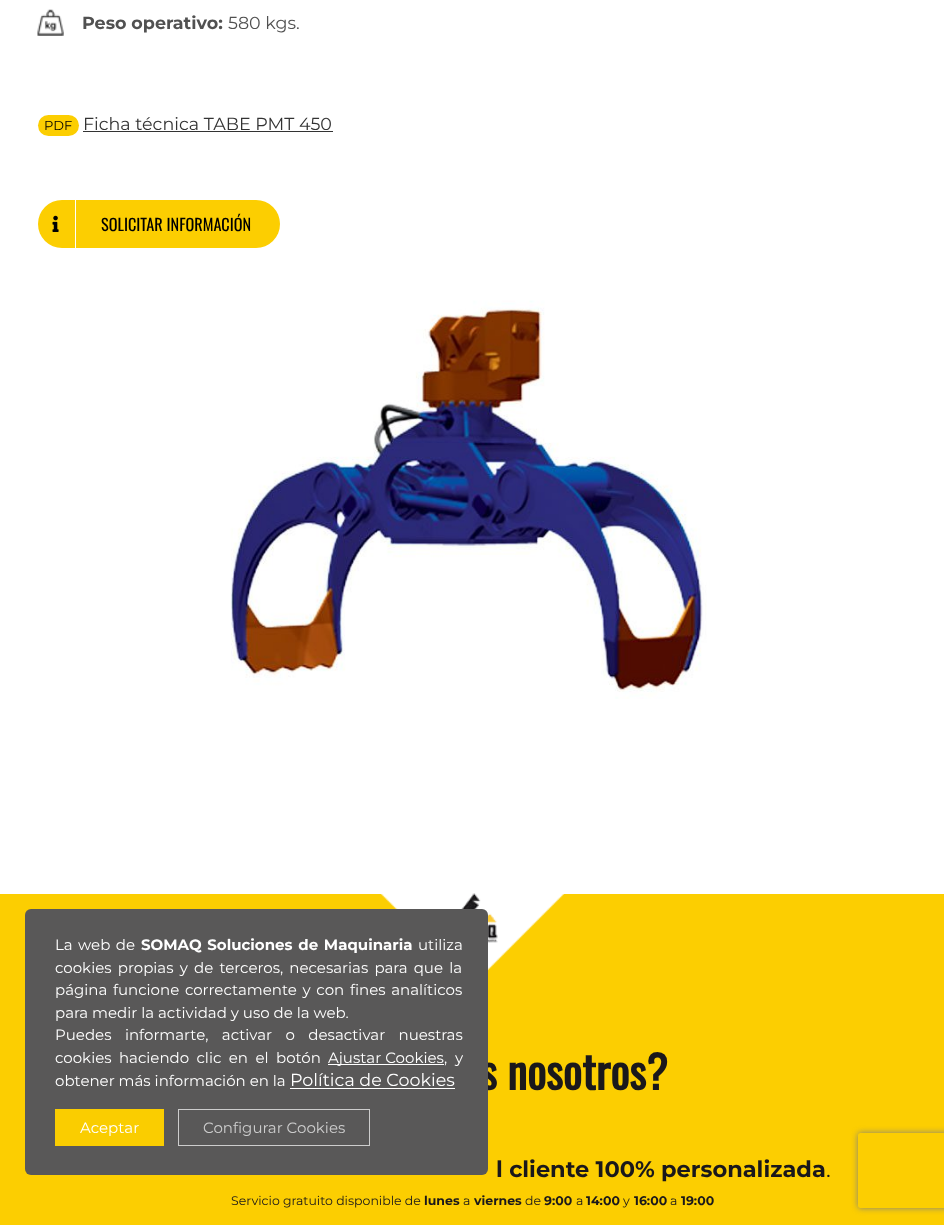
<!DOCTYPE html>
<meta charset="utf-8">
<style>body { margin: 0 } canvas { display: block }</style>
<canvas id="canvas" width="944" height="1225"></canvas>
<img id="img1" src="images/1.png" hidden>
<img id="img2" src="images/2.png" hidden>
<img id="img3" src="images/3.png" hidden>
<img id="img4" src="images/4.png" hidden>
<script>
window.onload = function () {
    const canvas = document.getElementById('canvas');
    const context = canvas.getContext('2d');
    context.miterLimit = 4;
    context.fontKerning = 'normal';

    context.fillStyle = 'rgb(255, 255, 255)';
    context.fillRect(0, 0, 944, 1225);
    context.drawImage(document.getElementById('img1'), 37, 9, 27, 27);
    context.fillStyle = 'rgb(252, 206, 1)';
    context.beginPath();
    context.roundRect(38, 115, 41, 21, 10.5);
    context.fill();
    context.fillStyle = 'rgb(51, 51, 51)';
    context.fillRect(83, 131, 250, 1);
    context.fillStyle = 'rgb(252, 206, 1)';
    context.beginPath();
    context.roundRect(38, 200, 242, 48, 24);
    context.fill();
    context.fillStyle = 'rgb(255, 255, 255)';
    context.fillRect(75, 200, 1, 48);
    context.drawImage(document.getElementById('img2'), 52, 215, 7, 17);
    context.drawImage(document.getElementById('img3'), 230, 300, 477, 399);
    context.fillStyle = 'rgb(252, 206, 1)';
    context.fillRect(0, 894, 944, 331);
    context.drawImage(document.getElementById('img4'), 380, 893, 185, 78);
    context.save();
    context.beginPath();
    context.moveTo(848, 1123);
    context.lineTo(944, 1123);
    context.lineTo(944, 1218);
    context.lineTo(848, 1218);
    context.closePath();
    context.moveTo(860.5, 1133);
    context.lineTo(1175.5, 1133);
    context.bezierCurveTo(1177, 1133, 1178, 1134, 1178, 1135.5);
    context.lineTo(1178, 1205.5);
    context.bezierCurveTo(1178, 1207, 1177, 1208, 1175.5, 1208);
    context.lineTo(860.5, 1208);
    context.bezierCurveTo(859, 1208, 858, 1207, 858, 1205.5);
    context.lineTo(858, 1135.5);
    context.bezierCurveTo(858, 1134, 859, 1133, 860.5, 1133);
    context.closePath();
    context.clip('evenodd');
    context.fillStyle = 'rgb(128, 128, 128)';
    context.filter = 'blur(3px)';
    context.beginPath();
    context.roundRect(858, 1133, 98, 75, 2.5);
    context.fill();
    context.filter = 'none';
    context.restore();
    context.font = 'bold 17.5px Montserrat';
    context.fillStyle = 'rgb(81, 81, 81)';
    context.fillText('Peso operativo:', 82, 29);
    context.font = '17.5px Montserrat';
    context.fillText('580 kgs.', 228, 29);
    context.font = '13px Montserrat';
    context.fillStyle = 'rgb(0, 0, 0)';
    context.fillText('PDF', 44, 130);
    context.font = '17.5px Montserrat';
    context.fillStyle = 'rgb(51, 51, 51)';
    context.fillText('Ficha técnica TABE PMT 450', 83, 130);
    context.font = '16.25px Oswald';
    context.fillStyle = 'rgb(0, 0, 0)';
    context.fillText('SOLICITAR INFORMACIÓN', 101, 231);
    context.font = 'bold 45px Oswald';
    context.fillStyle = 'rgb(26, 24, 27)';
    context.fillText('s nosotros?', 480, 1090);
    context.font = 'bold 22.5px Montserrat';
    context.fillText('l cliente 100% personalizada', 496, 1177);
    context.font = '22.5px Montserrat';
    context.fillText('.', 826, 1177);
    context.font = '12.5px Montserrat';
    context.fillText('Servicio gratuito disponible de', 231, 1205);
    context.font = 'bold 12.5px Montserrat';
    context.fillText('lunes', 424, 1205);
    context.font = '12.5px Montserrat';
    context.fillText('a', 463, 1205);
    context.font = 'bold 12.5px Montserrat';
    context.fillText('viernes', 474, 1205);
    context.font = '12.5px Montserrat';
    context.fillText('de', 525, 1205);
    context.font = 'bold 12.5px Montserrat';
    context.fillText('9:00', 544, 1205);
    context.font = '12.5px Montserrat';
    context.fillText('a', 576, 1205);
    context.font = 'bold 12.5px Montserrat';
    context.fillText('14:00', 586, 1205);
    context.font = '12.5px Montserrat';
    context.fillText('y', 623, 1205);
    context.font = 'bold 12.5px Montserrat';
    context.fillText('16:00', 634, 1205);
    context.font = '12.5px Montserrat';
    context.fillText('a', 670, 1205);
    context.font = 'bold 12.5px Montserrat';
    context.fillText('19:00', 681, 1205);
    context.fillStyle = 'rgb(89, 88, 88)';
    context.beginPath();
    context.roundRect(25, 909, 463, 266, 6);
    context.fill();
    context.wordSpacing = '1.5px';
    context.font = '15px Montserrat';
    context.fillStyle = 'rgb(255, 255, 255)';
    context.fillText('La web de', 55, 950);
    context.font = 'bold 15px Montserrat';
    context.fillText('SOMAQ Soluciones de Maquinaria', 141, 950);
    context.wordSpacing = '0px';
    context.font = '15px Montserrat';
    context.fillText('utiliza', 418, 950);
    context.wordSpacing = '2.25px';
    context.fillText('cookies propias y de terceros, necesarias para que la', 55, 973);
    context.wordSpacing = '1.75px';
    context.fillText('página funcione correctamente y con fines analíticos', 55, 995);
    context.wordSpacing = '0px';
    context.fillText('para medir la actividad y uso de la web.', 55, 1018);
    context.wordSpacing = '9.5px';
    context.fillText('Puedes informarte, activar o desactivar nuestras', 55, 1040);
    context.wordSpacing = '3.5px';
    context.fillText('cookies haciendo clic en el botón', 55, 1063);
    context.fillRect(328, 1064, 116, 1);
    context.wordSpacing = '0px';
    context.fillText('Ajustar Cookies', 328, 1063);
    context.wordSpacing = '4px';
    context.fillText(', y', 444, 1063);
    context.wordSpacing = '0px';
    context.fillText('obtener más información en la', 55, 1086);
    context.font = '17.5px Montserrat';
    context.fillText('Política de Cookies', 290, 1086);
    context.fillRect(290, 1088, 165, 1);
    context.fillStyle = 'rgb(250, 205, 0)';
    context.fillRect(55, 1109, 109, 37);
    context.font = '15px Montserrat';
    context.fillStyle = 'rgb(255, 255, 255)';
    context.fillText('Aceptar', 80, 1133);
    context.strokeStyle = 'rgb(205, 205, 205)';
    context.strokeRect(178.5, 1109.5, 191, 36);
    context.fillStyle = 'rgb(205, 205, 205)';
    context.fillText('Configurar Cookies', 203, 1133);
};
</script>
